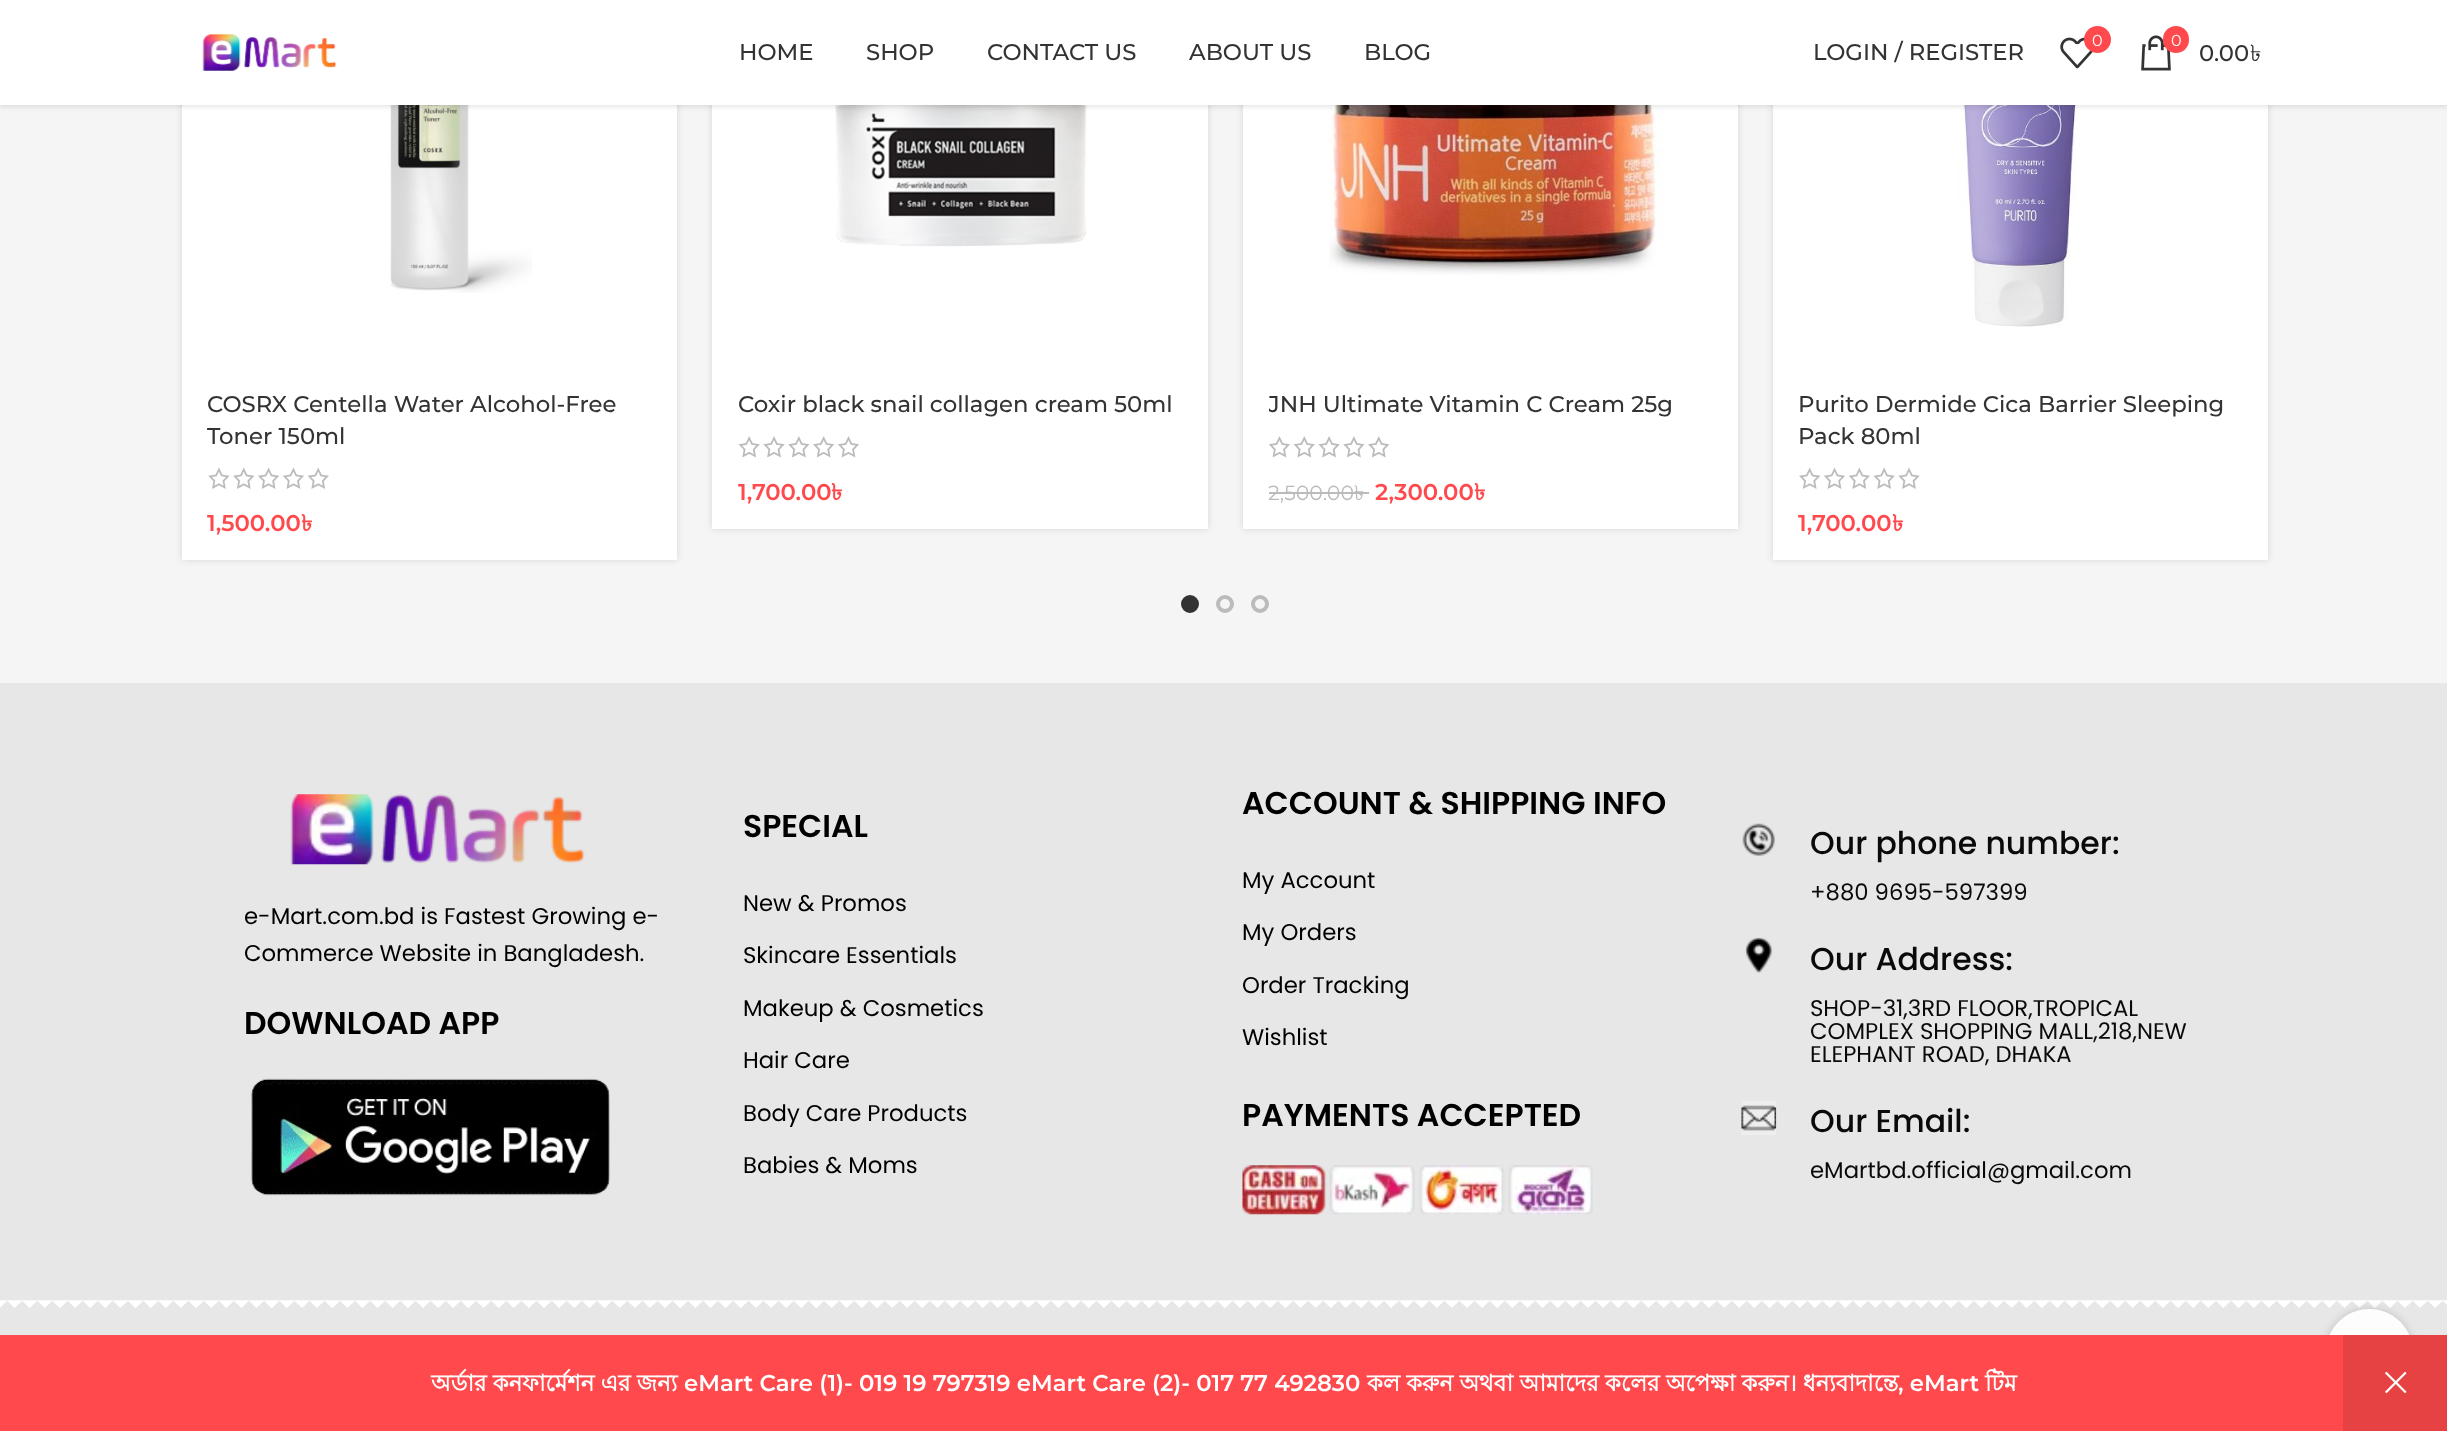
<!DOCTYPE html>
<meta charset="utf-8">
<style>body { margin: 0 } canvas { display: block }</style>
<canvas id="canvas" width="2447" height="1431"></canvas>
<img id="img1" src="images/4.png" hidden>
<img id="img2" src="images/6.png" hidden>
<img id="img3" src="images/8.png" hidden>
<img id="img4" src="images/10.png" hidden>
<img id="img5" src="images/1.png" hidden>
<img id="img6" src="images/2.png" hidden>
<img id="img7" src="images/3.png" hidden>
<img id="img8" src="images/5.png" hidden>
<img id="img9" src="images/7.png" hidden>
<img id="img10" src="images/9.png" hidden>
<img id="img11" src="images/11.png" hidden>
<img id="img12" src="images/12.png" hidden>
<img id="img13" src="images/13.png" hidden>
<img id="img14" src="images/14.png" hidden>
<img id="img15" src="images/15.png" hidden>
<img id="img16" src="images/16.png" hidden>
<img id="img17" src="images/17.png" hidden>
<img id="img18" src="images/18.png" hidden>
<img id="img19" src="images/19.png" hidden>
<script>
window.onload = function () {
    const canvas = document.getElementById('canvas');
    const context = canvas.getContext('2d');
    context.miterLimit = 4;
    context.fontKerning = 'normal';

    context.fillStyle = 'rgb(245, 245, 245)';
    context.fillRect(0, 0, 2447, 1431);
    context.fillStyle = 'rgba(0, 0, 0, 0.12)';
    context.filter = 'blur(3.5px)';
    context.beginPath();
    context.rect(182, -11, 495, 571);
    context.fill();
    context.filter = 'none';
    context.fillStyle = 'rgb(255, 255, 255)';
    context.fillRect(182, 105, 495, 455);
    context.drawImage(document.getElementById('img1'), 390, 105, 142, 188);
    context.fillStyle = 'rgba(0, 0, 0, 0.12)';
    context.filter = 'blur(3.5px)';
    context.beginPath();
    context.rect(712, -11, 496, 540);
    context.fill();
    context.filter = 'none';
    context.fillStyle = 'rgb(255, 255, 255)';
    context.fillRect(712, 105, 496, 424);
    context.drawImage(document.getElementById('img2'), 835, 105, 252, 142);
    context.fillStyle = 'rgba(0, 0, 0, 0.12)';
    context.filter = 'blur(3.5px)';
    context.beginPath();
    context.rect(1243, -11, 495, 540);
    context.fill();
    context.filter = 'none';
    context.fillStyle = 'rgb(255, 255, 255)';
    context.fillRect(1243, 105, 495, 424);
    context.drawImage(document.getElementById('img3'), 1329, 105, 336, 170);
    context.fillStyle = 'rgba(0, 0, 0, 0.12)';
    context.filter = 'blur(3.5px)';
    context.beginPath();
    context.rect(1773, -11, 495, 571);
    context.fill();
    context.filter = 'none';
    context.fillStyle = 'rgb(255, 255, 255)';
    context.fillRect(1773, 105, 495, 455);
    context.drawImage(document.getElementById('img4'), 1956, 105, 134, 222);
    context.fillStyle = 'rgba(0, 0, 0, 0.1)';
    context.filter = 'blur(2.5px)';
    context.beginPath();
    context.rect(0, 2, 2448, 105);
    context.fill();
    context.filter = 'none';
    context.fillStyle = 'rgb(255, 255, 255)';
    context.fillRect(0, 0, 2447, 105);
    context.drawImage(document.getElementById('img5'), 202, 34, 135, 37);
    context.drawImage(document.getElementById('img6'), 2060, 37, 33, 32);
    context.fillStyle = 'rgb(255, 73, 76)';
    context.beginPath();
    context.arc(2097.5, 39.5, 13.5, 0, 2 * Math.PI);
    context.fill();
    context.drawImage(document.getElementById('img7'), 2141, 35, 30, 36);
    context.beginPath();
    context.roundRect(2163, 26, 26, 27, 13);
    context.fill();
    context.drawImage(document.getElementById('img8'), 208, 467, 121, 22);
    context.drawImage(document.getElementById('img9'), 738, 436, 121, 22);
    context.drawImage(document.getElementById('img10'), 1269, 436, 121, 22);
    context.fillStyle = 'rgb(187, 187, 187)';
    context.fillRect(1269, 492, 86, 2);
    context.fillRect(1355, 492, 14, 2);
    context.drawImage(document.getElementById('img11'), 1799, 467, 121, 22);
    context.fillStyle = 'rgb(51, 51, 51)';
    context.beginPath();
    context.arc(1190, 604, 7, 0, 2 * Math.PI);
    context.fill();
    context.strokeStyle = 'rgb(51, 51, 51)';
    context.lineWidth = 4;
    context.stroke();
    context.beginPath();
    context.arc(1225, 604, 7, 0, 2 * Math.PI);
    context.strokeStyle = 'rgb(187, 187, 187)';
    context.stroke();
    context.beginPath();
    context.arc(1260, 604, 7, 0, 2 * Math.PI);
    context.stroke();
    context.fillStyle = 'rgb(231, 231, 231)';
    context.fillRect(0, 683, 2447, 652);
    context.drawImage(document.getElementById('img12'), 290, 794, 295, 71);
    context.drawImage(document.getElementById('img13'), 251, 1078, 359, 118);
    context.drawImage(document.getElementById('img14'), 1242, 1165, 351, 50);
    context.drawImage(document.getElementById('img15'), 1742, 823, 33, 33);
    context.drawImage(document.getElementById('img16'), 1745, 937, 28, 36);
    context.drawImage(document.getElementById('img17'), 1741, 1101, 36, 34);
    context.drawImage(document.getElementById('img18'), 0, 1300, 2447, 8);
    context.save();
    context.beginPath();
    context.moveTo(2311, 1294);
    context.lineTo(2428, 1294);
    context.lineTo(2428, 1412);
    context.lineTo(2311, 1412);
    context.closePath();
    context.moveTo(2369.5, 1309);
    context.bezierCurveTo(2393.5, 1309, 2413, 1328.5, 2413, 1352.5);
    context.lineTo(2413, 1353.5);
    context.bezierCurveTo(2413, 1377.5, 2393.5, 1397, 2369.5, 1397);
    context.bezierCurveTo(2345.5, 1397, 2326, 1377.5, 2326, 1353.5);
    context.lineTo(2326, 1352.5);
    context.bezierCurveTo(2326, 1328.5, 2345.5, 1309, 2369.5, 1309);
    context.closePath();
    context.clip('evenodd');
    context.fillStyle = 'rgba(0, 0, 0, 0.17)';
    context.filter = 'blur(4.5px)';
    context.beginPath();
    context.roundRect(2326, 1309, 87, 88, 43.5);
    context.fill();
    context.filter = 'none';
    context.restore();
    context.fillStyle = 'rgba(255, 255, 255, 0.9)';
    context.beginPath();
    context.roundRect(2326, 1309, 87, 88, 43.5);
    context.fill();
    context.fillStyle = 'rgb(255, 73, 76)';
    context.fillRect(0, 1335, 2343, 96);
    context.fillStyle = 'rgb(230, 66, 68)';
    context.fillRect(2343, 1335, 104, 96);
    context.drawImage(document.getElementById('img19'), 2385, 1371, 22, 23);
    context.font = '500 22.75px Montserrat';
    context.fillStyle = 'rgb(51, 51, 51)';
    context.fillText('HOME', 739, 60);
    context.fillText('SHOP', 866, 60);
    context.fillText('CONTACT US', 987, 60);
    context.fillText('ABOUT US', 1189, 60);
    context.fillText('BLOG', 1364, 60);
    context.fillText('LOGIN / REGISTER', 1813, 60);
    context.font = '16px Montserrat';
    context.fillStyle = 'rgb(255, 255, 255)';
    context.fillText('0', 2092, 46);
    context.fillText('0', 2171, 46);
    context.font = '500 22.75px Montserrat';
    context.fillStyle = 'rgb(51, 51, 51)';
    context.fillText('0.00', 2199, 61);
    context.font = '22.75px Lohit Bengali';
    context.fillText('৳', 2250, 61);
    context.font = '500 22.75px Montserrat';
    context.fillText('COSRX Centella Water Alcohol-Free', 207, 412);
    context.fillText('Toner 150ml', 207, 444);
    context.font = '600 22.75px Montserrat';
    context.fillStyle = 'rgb(255, 73, 76)';
    context.fillText('1,500.00', 207, 531);
    context.font = 'bold 22.75px Lohit Bengali';
    context.fillText('৳', 301, 531);
    context.save();
    context.beginPath();
    context.rect(739, 387, 442, 33);
    context.clip();
    context.font = '500 22.75px Montserrat';
    context.fillStyle = 'rgb(51, 51, 51)';
    context.fillText('Coxir black snail collagen cream 50ml', 738, 412);
    context.restore();
    context.font = '600 22.75px Montserrat';
    context.fillText('1,700.00', 738, 500);
    context.font = 'bold 22.75px Lohit Bengali';
    context.fillText('৳', 831, 500);
    context.save();
    context.beginPath();
    context.rect(1269, 387, 443, 33);
    context.clip();
    context.font = '500 22.75px Montserrat';
    context.fillStyle = 'rgb(51, 51, 51)';
    context.fillText('JNH Ultimate Vitamin C Cream 25g', 1268, 412);
    context.restore();
    context.font = '20.5px Montserrat';
    context.fillStyle = 'rgb(187, 187, 187)';
    context.fillText('2,500.00', 1268, 500);
    context.font = '20.5px Lohit Bengali';
    context.fillText('৳', 1354, 500);
    context.font = '600 22.75px Montserrat';
    context.fillStyle = 'rgb(255, 73, 76)';
    context.fillText('2,300.00', 1375, 500);
    context.font = 'bold 22.75px Lohit Bengali';
    context.fillText('৳', 1474, 500);
    context.font = '500 22.75px Montserrat';
    context.fillStyle = 'rgb(51, 51, 51)';
    context.fillText('Purito Dermide Cica Barrier Sleeping', 1798, 412);
    context.fillText('Pack 80ml', 1798, 444);
    context.font = '600 22.75px Montserrat';
    context.fillStyle = 'rgb(255, 73, 76)';
    context.fillText('1,700.00', 1798, 531);
    context.font = 'bold 22.75px Lohit Bengali';
    context.fillText('৳', 1892, 531);
    context.font = '22.75px Poppins';
    context.fillStyle = 'rgb(0, 0, 0)';
    context.fillText('e-Mart.com.bd is Fastest Growing e-', 244, 924);
    context.fillText('Commerce Website in Bangladesh.', 244, 961);
    context.font = '600 31.5px Poppins';
    context.fillText('DOWNLOAD APP', 244, 1034);
    context.fillText('SPECIAL', 743, 837);
    context.font = '22.75px Poppins';
    context.fillText('New & Promos', 743, 911);
    context.fillText('Skincare Essentials', 743, 963);
    context.fillText('Makeup & Cosmetics', 743, 1016);
    context.fillText('Hair Care', 743, 1068);
    context.fillText('Body Care Products', 743, 1121);
    context.fillText('Babies & Moms', 743, 1173);
    context.font = '600 31.5px Poppins';
    context.fillText('ACCOUNT & SHIPPING INFO', 1242, 814);
    context.font = '22.75px Poppins';
    context.fillText('My Account', 1242, 888);
    context.fillText('My Orders', 1242, 940);
    context.fillText('Order Tracking', 1242, 993);
    context.fillText('Wishlist', 1242, 1045);
    context.font = '600 31.5px Poppins';
    context.fillText('PAYMENTS ACCEPTED', 1242, 1126);
    context.font = '500 31.5px Poppins';
    context.fillStyle = 'rgb(10, 10, 10)';
    context.fillText('Our phone number:', 1810, 854);
    context.font = '22.75px Poppins';
    context.fillText('+880 9695-597399', 1810, 900);
    context.font = '500 31.5px Poppins';
    context.fillText('Our Address:', 1810, 970);
    context.font = '22.75px Poppins';
    context.fillText('SHOP-31,3RD FLOOR,TROPICAL', 1810, 1016);
    context.fillText('COMPLEX SHOPPING MALL,218,NEW', 1810, 1039);
    context.fillText('ELEPHANT ROAD, DHAKA', 1810, 1062);
    context.font = '500 31.5px Poppins';
    context.fillText('Our Email:', 1810, 1132);
    context.font = '22.75px Poppins';
    context.fillText('eMartbd.official@gmail.com', 1810, 1178);
    context.font = 'bold 22.75px Lohit Bengali';
    context.fillStyle = 'rgb(255, 255, 255)';
    context.fillText('অর্ডার কনফার্মেশন এর জন্য', 431, 1391);
    context.font = '600 22.75px Montserrat';
    context.fillText('eMart Care (1)- 019 19 797319 eMart Care (2)- 017 77 492830', 684, 1391);
    context.font = 'bold 22.75px Lohit Bengali';
    context.fillText('কল করুন অথবা আমাদের কলের অপেক্ষা করুন। ধন্যবাদান্তে', 1367, 1391);
    context.font = '600 22.75px Montserrat';
    context.fillText(', eMart', 1898, 1391);
    context.font = 'bold 22.75px Lohit Bengali';
    context.fillText('টিম', 1985, 1391);
};
</script>
